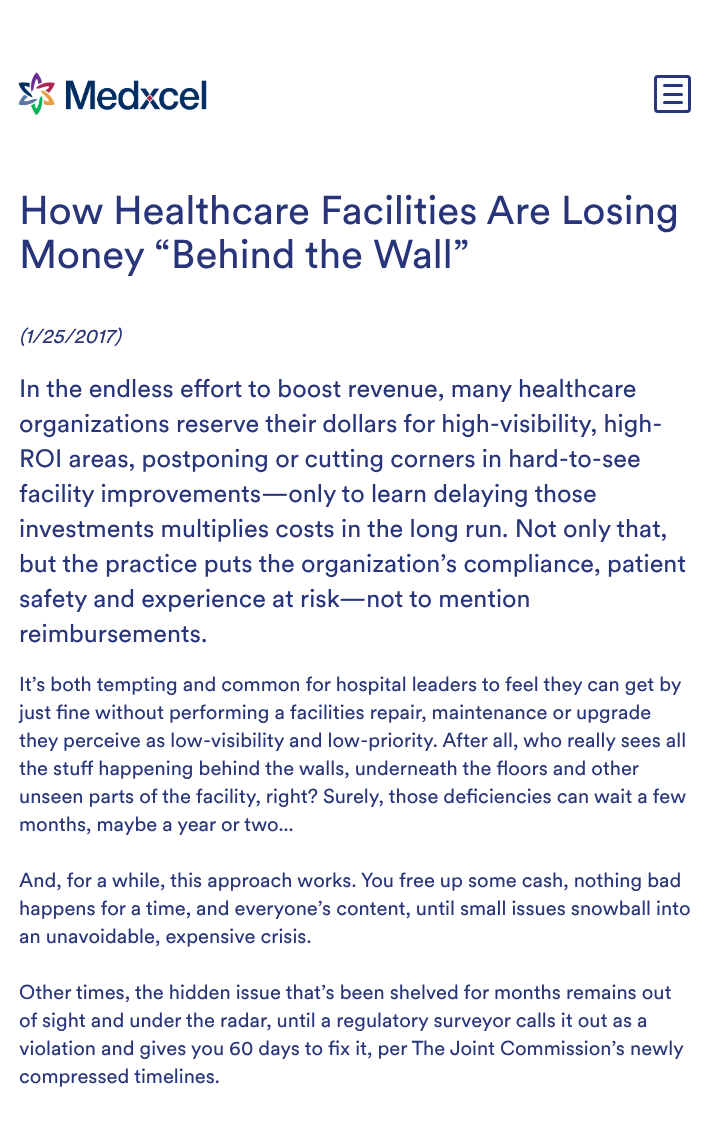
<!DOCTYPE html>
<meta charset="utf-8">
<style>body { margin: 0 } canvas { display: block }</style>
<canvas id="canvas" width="709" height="1123"></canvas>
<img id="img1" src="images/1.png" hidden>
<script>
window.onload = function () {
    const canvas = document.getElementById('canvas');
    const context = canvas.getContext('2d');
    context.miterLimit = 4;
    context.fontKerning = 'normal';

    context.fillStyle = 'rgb(255, 255, 255)';
    context.fillRect(0, 0, 709, 1123);
    context.drawImage(document.getElementById('img1'), 18, 72, 189, 43);
    context.beginPath();
    context.roundRect(655.5, 76.5, 34, 35, 2.5);
    context.strokeStyle = 'rgb(40, 53, 123)';
    context.lineWidth = 3;
    context.stroke();
    context.fillStyle = 'rgb(40, 53, 123)';
    context.beginPath();
    context.roundRect(663, 84, 20, 3, 1.5);
    context.fill();
    context.beginPath();
    context.roundRect(663, 93, 20, 3, 1.5);
    context.fill();
    context.beginPath();
    context.roundRect(663, 101, 20, 3, 1.5);
    context.fill();
    context.font = '40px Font';
    context.fillText('How Healthcare Facilities Are Losing', 19, 224);
    context.fillText('Money “Behind the Wall”', 19, 268);
    context.font = 'italic 20px Font';
    context.fillText('(1/25/2017)', 19, 343);
    context.font = '25px Font';
    context.fillText('In the endless effort to boost revenue, many healthcare', 19, 397);
    context.fillText('organizations reserve their dollars for high-visibility, high-', 19, 432);
    context.fillText('ROI areas, postponing or cutting corners in hard-to-see', 19, 467);
    context.fillText('facility improvements—only to learn delaying those', 19, 502);
    context.fillText('investments multiplies costs in the long run. Not only that,', 19, 537);
    context.fillText('but the practice puts the organization’s compliance, patient', 19, 572);
    context.fillText('safety and experience at risk—not to mention', 19, 607);
    context.fillText('reimbursements.', 19, 642);
    context.font = '20px Font';
    context.fillText('It’s both tempting and common for hospital leaders to feel they can get by', 19, 691);
    context.fillText('just fine without performing a facilities repair, maintenance or upgrade', 19, 719);
    context.fillText('they perceive as low-visibility and low-priority. After all, who really sees all', 19, 747);
    context.fillText('the stuff happening behind the walls, underneath the floors and other', 19, 775);
    context.fillText('unseen parts of the facility, right? Surely, those deficiencies can wait a few', 19, 803);
    context.fillText('months, maybe a year or two...', 19, 831);
    context.fillText('And, for a while, this approach works. You free up some cash, nothing bad', 19, 887);
    context.fillText('happens for a time, and everyone’s content, until small issues snowball into', 19, 915);
    context.fillText('an unavoidable, expensive crisis.', 19, 943);
    context.fillText('Other times, the hidden issue that’s been shelved for months remains out', 19, 999);
    context.fillText('of sight and under the radar, until a regulatory surveyor calls it out as a', 19, 1027);
    context.fillText('violation and gives you 60 days to fix it, per The Joint Commission’s newly', 19, 1055);
    context.fillText('compressed timelines.', 19, 1083);
};
</script>
